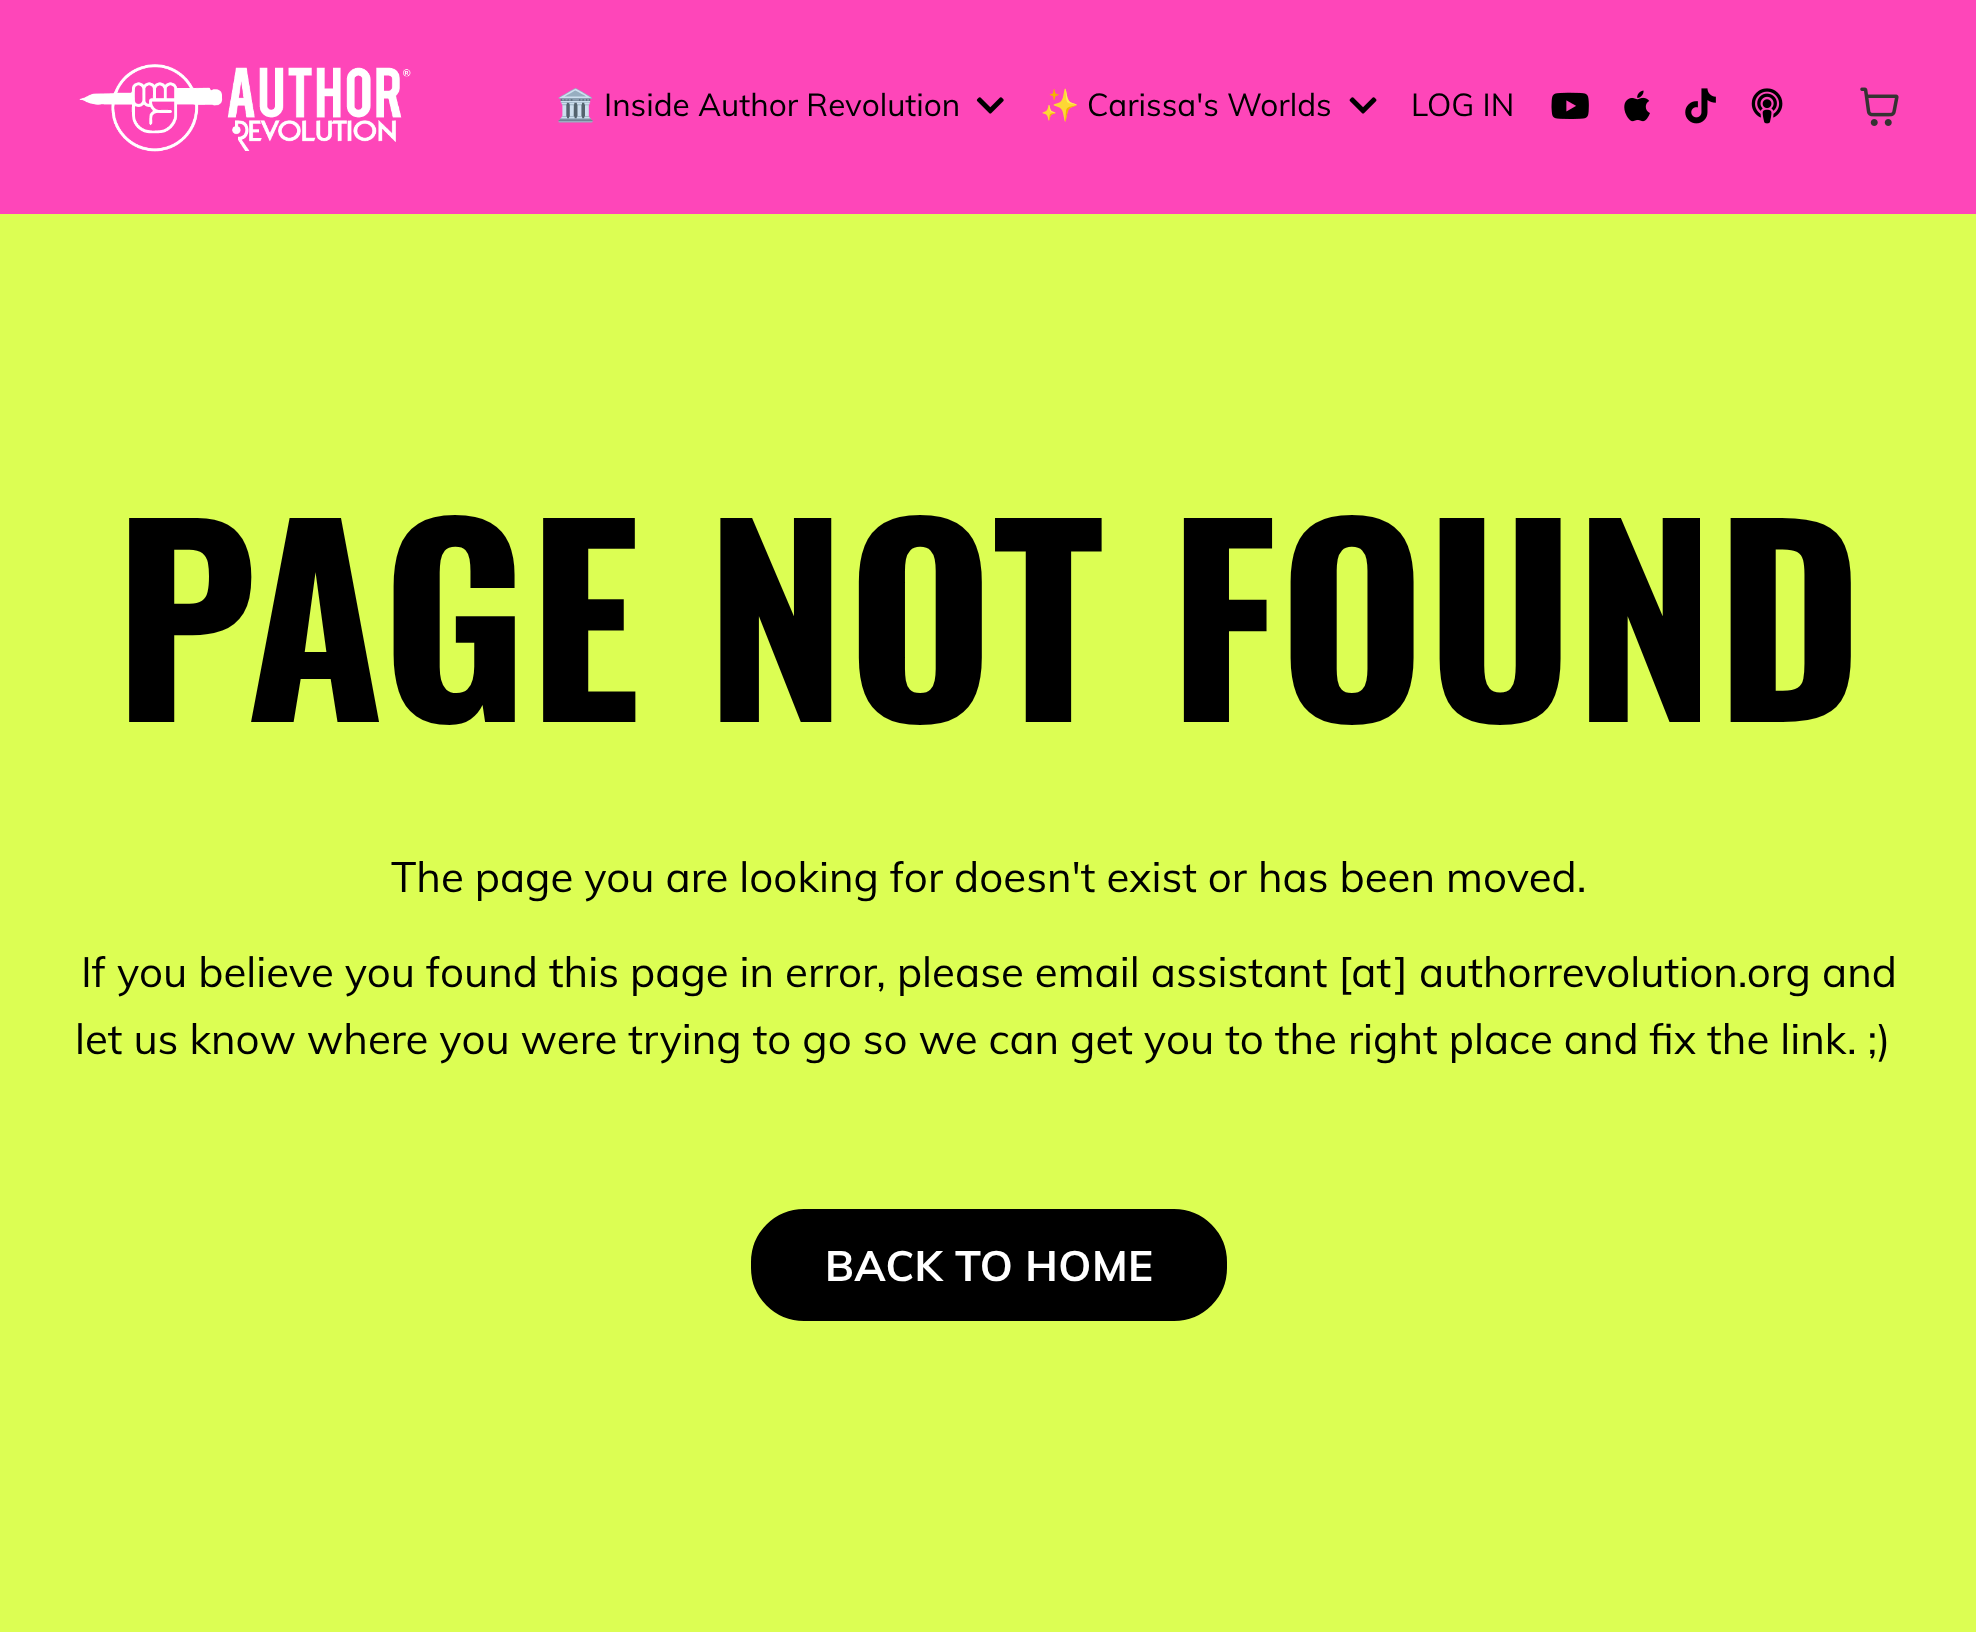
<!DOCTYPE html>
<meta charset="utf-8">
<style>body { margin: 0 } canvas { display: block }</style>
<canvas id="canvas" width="1976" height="1632"></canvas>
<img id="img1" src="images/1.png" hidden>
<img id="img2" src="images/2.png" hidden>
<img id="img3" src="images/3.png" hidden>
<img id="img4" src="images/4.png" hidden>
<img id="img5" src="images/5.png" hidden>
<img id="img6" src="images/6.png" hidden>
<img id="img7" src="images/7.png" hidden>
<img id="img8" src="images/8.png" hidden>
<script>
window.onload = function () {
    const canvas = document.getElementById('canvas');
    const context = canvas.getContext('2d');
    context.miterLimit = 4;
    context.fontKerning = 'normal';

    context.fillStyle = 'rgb(220, 254, 83)';
    context.fillRect(0, 0, 1976, 1632);
    context.fillStyle = 'rgb(254, 70, 185)';
    context.fillRect(0, 0, 1976, 214);
    context.drawImage(document.getElementById('img1'), 79, 64, 332, 88);
    context.drawImage(document.getElementById('img2'), 976, 97, 28, 17);
    context.drawImage(document.getElementById('img3'), 1349, 97, 28, 17);
    context.drawImage(document.getElementById('img4'), 1551, 92, 38, 27);
    context.drawImage(document.getElementById('img5'), 1624, 90, 26, 32);
    context.drawImage(document.getElementById('img6'), 1685, 88, 31, 36);
    context.drawImage(document.getElementById('img7'), 1751, 88, 32, 36);
    context.drawImage(document.getElementById('img8'), 1860, 87, 39, 39);
    context.fillStyle = 'rgb(0, 0, 0)';
    context.beginPath();
    context.roundRect(753, 1211, 472, 108, 51);
    context.fill();
    context.strokeStyle = 'rgb(0, 0, 0)';
    context.lineWidth = 4;
    context.stroke();
    context.font = '31.5px Noto Color Emoji';
    context.fillText('🏛️', 556, 116);
    context.font = '31.5px Muli';
    context.fillText('Inside Author Revolution', 604, 116);
    context.font = '31.5px Noto Color Emoji';
    context.fillText('✨', 1040, 116);
    context.font = '31.5px Muli';
    context.fillText('Carissa\'s Worlds', 1087, 116);
    context.fillText('LOG IN', 1411, 116);
    context.font = 'bold 252px Oswald';
    context.fillText('PAGE NOT FOUND', 114, 722);
    context.font = '42px Muli';
    context.fillText('The page you are looking for doesn\'t exist or has been moved.', 391, 892);
    context.fillText('If you believe you found this page in error, please email assistant [at] authorrevolution.org and', 81, 987);
    context.fillText('let us know where you were trying to go so we can get you to the right place and fix the link. ;)', 75, 1054);
    context.letterSpacing = '0.5px';
    context.font = 'bold 42px Muli';
    context.fillStyle = 'rgb(255, 255, 255)';
    context.fillText('BACK TO HOME', 825, 1281);
};
</script>
